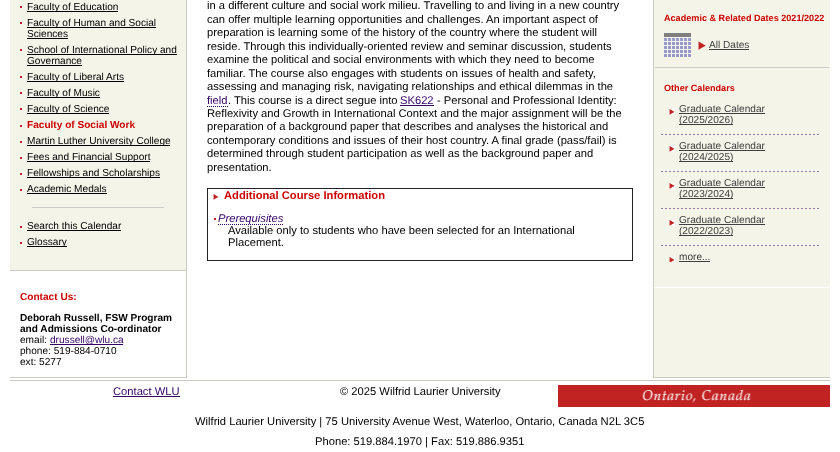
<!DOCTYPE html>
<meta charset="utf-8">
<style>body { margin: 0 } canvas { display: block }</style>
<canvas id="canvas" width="840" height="452"></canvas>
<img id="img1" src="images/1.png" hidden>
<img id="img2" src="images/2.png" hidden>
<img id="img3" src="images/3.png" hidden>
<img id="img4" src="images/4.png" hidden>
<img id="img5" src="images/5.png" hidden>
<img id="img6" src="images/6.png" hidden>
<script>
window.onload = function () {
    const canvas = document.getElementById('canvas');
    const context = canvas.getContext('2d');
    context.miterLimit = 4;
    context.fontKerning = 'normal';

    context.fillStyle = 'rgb(255, 255, 255)';
    context.fillRect(0, 0, 840, 452);
    context.fillStyle = 'rgb(244, 244, 233)';
    context.fillRect(10, 0, 176, 270);
    context.fillStyle = 'rgb(201, 202, 194)';
    context.fillRect(186, 0, 1, 378);
    context.drawImage(document.getElementById('img1'), 20, 6, 2, 2);
    context.fillStyle = 'rgb(0, 0, 0)';
    context.fillRect(27, 11, 91, 1);
    context.drawImage(document.getElementById('img1'), 20, 22, 2, 2);
    context.fillRect(27, 27, 129, 1);
    context.fillRect(27, 38, 41, 1);
    context.drawImage(document.getElementById('img1'), 20, 49, 2, 2);
    context.fillRect(27, 54, 150, 1);
    context.fillRect(27, 65, 55, 1);
    context.drawImage(document.getElementById('img1'), 20, 76, 2, 2);
    context.fillRect(27, 81, 97, 1);
    context.drawImage(document.getElementById('img1'), 20, 92, 2, 2);
    context.fillRect(27, 97, 73, 1);
    context.drawImage(document.getElementById('img1'), 20, 108, 2, 2);
    context.fillRect(27, 113, 82, 1);
    context.drawImage(document.getElementById('img1'), 20, 125, 2, 2);
    context.drawImage(document.getElementById('img1'), 20, 141, 2, 2);
    context.fillRect(27, 145, 143, 1);
    context.drawImage(document.getElementById('img1'), 20, 157, 2, 2);
    context.fillRect(27, 161, 123, 1);
    context.drawImage(document.getElementById('img1'), 20, 173, 2, 2);
    context.fillRect(27, 177, 133, 1);
    context.drawImage(document.getElementById('img1'), 20, 189, 2, 2);
    context.fillRect(27, 193, 80, 1);
    context.fillStyle = 'rgb(205, 204, 202)';
    context.fillRect(32, 207, 132, 1);
    context.drawImage(document.getElementById('img1'), 20, 226, 2, 2);
    context.fillStyle = 'rgb(0, 0, 0)';
    context.fillRect(27, 230, 94, 1);
    context.drawImage(document.getElementById('img1'), 20, 242, 2, 2);
    context.fillRect(27, 246, 40, 1);
    context.fillStyle = 'rgb(201, 202, 194)';
    context.fillRect(10, 270, 176, 1);
    context.fillRect(10, 377, 176, 1);
    context.fillStyle = 'rgb(51, 0, 102)';
    context.fillRect(50, 344, 73, 1);
    context.beginPath();
    context.moveTo(207, 106.5);
    context.lineTo(228, 106.5);
    context.strokeStyle = 'rgb(51, 0, 102)';
    context.setLineDash([1, 1]);
    context.stroke();
    context.fillRect(400, 105, 34, 1);
    context.strokeStyle = 'rgb(34, 34, 34)';
    context.setLineDash([]);
    context.strokeRect(207.5, 188.5, 425, 72);
    context.drawImage(document.getElementById('img2'), 213, 194, 6, 6);
    context.drawImage(document.getElementById('img1'), 214, 218, 2, 2);
    context.beginPath();
    context.moveTo(218, 224.5);
    context.lineTo(283, 224.5);
    context.strokeStyle = 'rgb(51, 0, 102)';
    context.setLineDash([1, 1]);
    context.stroke();
    context.fillStyle = 'rgb(244, 244, 233)';
    context.fillRect(654, 0, 176, 377);
    context.fillStyle = 'rgb(201, 202, 194)';
    context.fillRect(653, 377, 177, 1);
    context.fillRect(653, 0, 1, 378);
    context.fillStyle = 'rgb(255, 255, 255)';
    context.fillRect(654, 287, 176, 1);
    context.drawImage(document.getElementById('img3'), 664, 33, 42, 24);
    context.fillStyle = 'rgb(64, 64, 64)';
    context.fillRect(709, 49, 40, 1);
    context.fillStyle = 'rgb(205, 204, 202)';
    context.fillRect(655, 67, 174, 1);
    context.drawImage(document.getElementById('img4'), 661, 134, 158, 1);
    context.drawImage(document.getElementById('img2'), 669, 109, 6, 6);
    context.fillStyle = 'rgb(64, 64, 64)';
    context.fillRect(679, 113, 86, 1);
    context.fillRect(679, 124, 54, 1);
    context.drawImage(document.getElementById('img4'), 661, 171, 158, 1);
    context.drawImage(document.getElementById('img2'), 669, 146, 6, 6);
    context.fillRect(679, 150, 86, 1);
    context.fillRect(679, 161, 54, 1);
    context.drawImage(document.getElementById('img4'), 661, 208, 158, 1);
    context.drawImage(document.getElementById('img2'), 669, 183, 6, 6);
    context.fillRect(679, 187, 86, 1);
    context.fillRect(679, 198, 54, 1);
    context.drawImage(document.getElementById('img4'), 661, 245, 158, 1);
    context.drawImage(document.getElementById('img2'), 669, 220, 6, 6);
    context.fillRect(679, 224, 86, 1);
    context.fillRect(679, 235, 54, 1);
    context.drawImage(document.getElementById('img5'), 669, 257, 6, 5);
    context.fillRect(679, 261, 31, 1);
    context.fillStyle = 'rgb(201, 202, 194)';
    context.fillRect(10, 380, 820, 1);
    context.fillStyle = 'rgb(51, 0, 102)';
    context.fillRect(113, 396, 67, 1);
    context.drawImage(document.getElementById('img6'), 558, 385, 272, 22);
    context.font = '10.1px Liberation Sans';
    context.fillStyle = 'rgb(0, 0, 0)';
    context.fillText('Faculty of Education', 27, 10);
    context.fillText('Faculty of Human and Social', 27, 26);
    context.fillText('Sciences', 27, 37);
    context.fillText('School of International Policy and', 27, 53);
    context.fillText('Governance', 27, 64);
    context.fillText('Faculty of Liberal Arts', 27, 80);
    context.fillText('Faculty of Music', 27, 96);
    context.fillText('Faculty of Science', 27, 112);
    context.font = 'bold 10.1px Liberation Sans';
    context.fillStyle = 'rgb(204, 0, 0)';
    context.fillText('Faculty of Social Work', 27, 128);
    context.font = '10.1px Liberation Sans';
    context.fillStyle = 'rgb(0, 0, 0)';
    context.fillText('Martin Luther University College', 27, 144);
    context.fillText('Fees and Financial Support', 27, 160);
    context.fillText('Fellowships and Scholarships', 27, 176);
    context.fillText('Academic Medals', 27, 192);
    context.fillText('Search this Calendar', 27, 229);
    context.fillText('Glossary', 27, 245);
    context.font = 'bold 10.1px Liberation Sans';
    context.fillStyle = 'rgb(204, 0, 0)';
    context.fillText('Contact Us:', 20, 300);
    context.fillStyle = 'rgb(0, 0, 0)';
    context.fillText('Deborah Russell, FSW Program', 20, 321);
    context.fillText('and Admissions Co-ordinator', 20, 332);
    context.font = '10.1px Liberation Sans';
    context.fillText('email:', 20, 343);
    context.fillStyle = 'rgb(51, 0, 102)';
    context.fillText('drussell@wlu.ca', 50, 343);
    context.fillStyle = 'rgb(0, 0, 0)';
    context.fillText('phone: 519-884-0710', 20, 354);
    context.fillText('ext: 5277', 20, 365);
    context.font = '11.2px Liberation Sans';
    context.fillText('in a different culture and social work milieu. Travelling to and living in a new country', 207, 9);
    context.fillText('can offer multiple learning opportunities and challenges. An important aspect of', 207, 23);
    context.fillText('preparation is learning some of the history of the country where the student will', 207, 36);
    context.fillText('reside. Through this individually-oriented review and seminar discussion, students', 207, 50);
    context.fillText('examine the political and social environments with which they need to become', 207, 63);
    context.fillText('familiar. The course also engages with students on issues of health and safety,', 207, 77);
    context.fillText('assessing and managing risk, navigating relationships and ethical dilemmas in the', 207, 90);
    context.fillStyle = 'rgb(51, 0, 102)';
    context.fillText('field', 207, 104);
    context.fillStyle = 'rgb(0, 0, 0)';
    context.fillText('. This course is a direct segue into', 228, 104);
    context.fillStyle = 'rgb(51, 0, 102)';
    context.fillText('SK622', 400, 104);
    context.fillStyle = 'rgb(0, 0, 0)';
    context.fillText('- Personal and Professional Identity:', 437, 104);
    context.fillText('Reflexivity and Growth in International Context and the major assignment will be the', 207, 117);
    context.fillText('preparation of a background paper that describes and analyses the historical and', 207, 130);
    context.fillText('contemporary conditions and issues of their host country. A final grade (pass/fail) is', 207, 144);
    context.fillText('determined through student participation as well as the background paper and', 207, 157);
    context.fillText('presentation.', 207, 171);
    context.font = 'bold 11.2px Liberation Sans';
    context.fillStyle = 'rgb(204, 0, 0)';
    context.fillText('Additional Course Information', 224, 199);
    context.font = 'italic 11.2px Liberation Sans';
    context.fillStyle = 'rgb(51, 0, 102)';
    context.fillText('Prerequisites', 218, 222);
    context.font = '11.2px Liberation Sans';
    context.fillStyle = 'rgb(0, 0, 0)';
    context.fillText('Available only to students who have been selected for an International', 228, 234);
    context.fillText('Placement.', 228, 246);
    context.font = 'bold 9.1px Liberation Sans';
    context.fillStyle = 'rgb(204, 0, 0)';
    context.fillText('Academic & Related Dates 2021/2022', 664, 21);
    context.font = '10.1px Liberation Sans';
    context.fillStyle = 'rgb(64, 64, 64)';
    context.fillText('All Dates', 709, 48);
    context.font = 'bold 9.1px Liberation Sans';
    context.fillStyle = 'rgb(204, 0, 0)';
    context.fillText('Other Calendars', 664, 91);
    context.font = '10.1px Liberation Sans';
    context.fillStyle = 'rgb(64, 64, 64)';
    context.fillText('Graduate Calendar', 679, 112);
    context.fillText('(2025/2026)', 679, 123);
    context.fillText('Graduate Calendar', 679, 149);
    context.fillText('(2024/2025)', 679, 160);
    context.fillText('Graduate Calendar', 679, 186);
    context.fillText('(2023/2024)', 679, 197);
    context.fillText('Graduate Calendar', 679, 223);
    context.fillText('(2022/2023)', 679, 234);
    context.fillText('more...', 679, 260);
    context.font = '11.2px Liberation Sans';
    context.fillStyle = 'rgb(51, 0, 102)';
    context.fillText('Contact WLU', 113, 395);
    context.fillStyle = 'rgb(0, 0, 0)';
    context.fillText('© 2025 Wilfrid Laurier University', 340, 395);
    context.fillText('Wilfrid Laurier University | 75 University Avenue West, Waterloo, Ontario, Canada N2L 3C5', 195, 425);
    context.fillText('Phone: 519.884.1970 | Fax: 519.886.9351', 315, 445);
};
</script>
